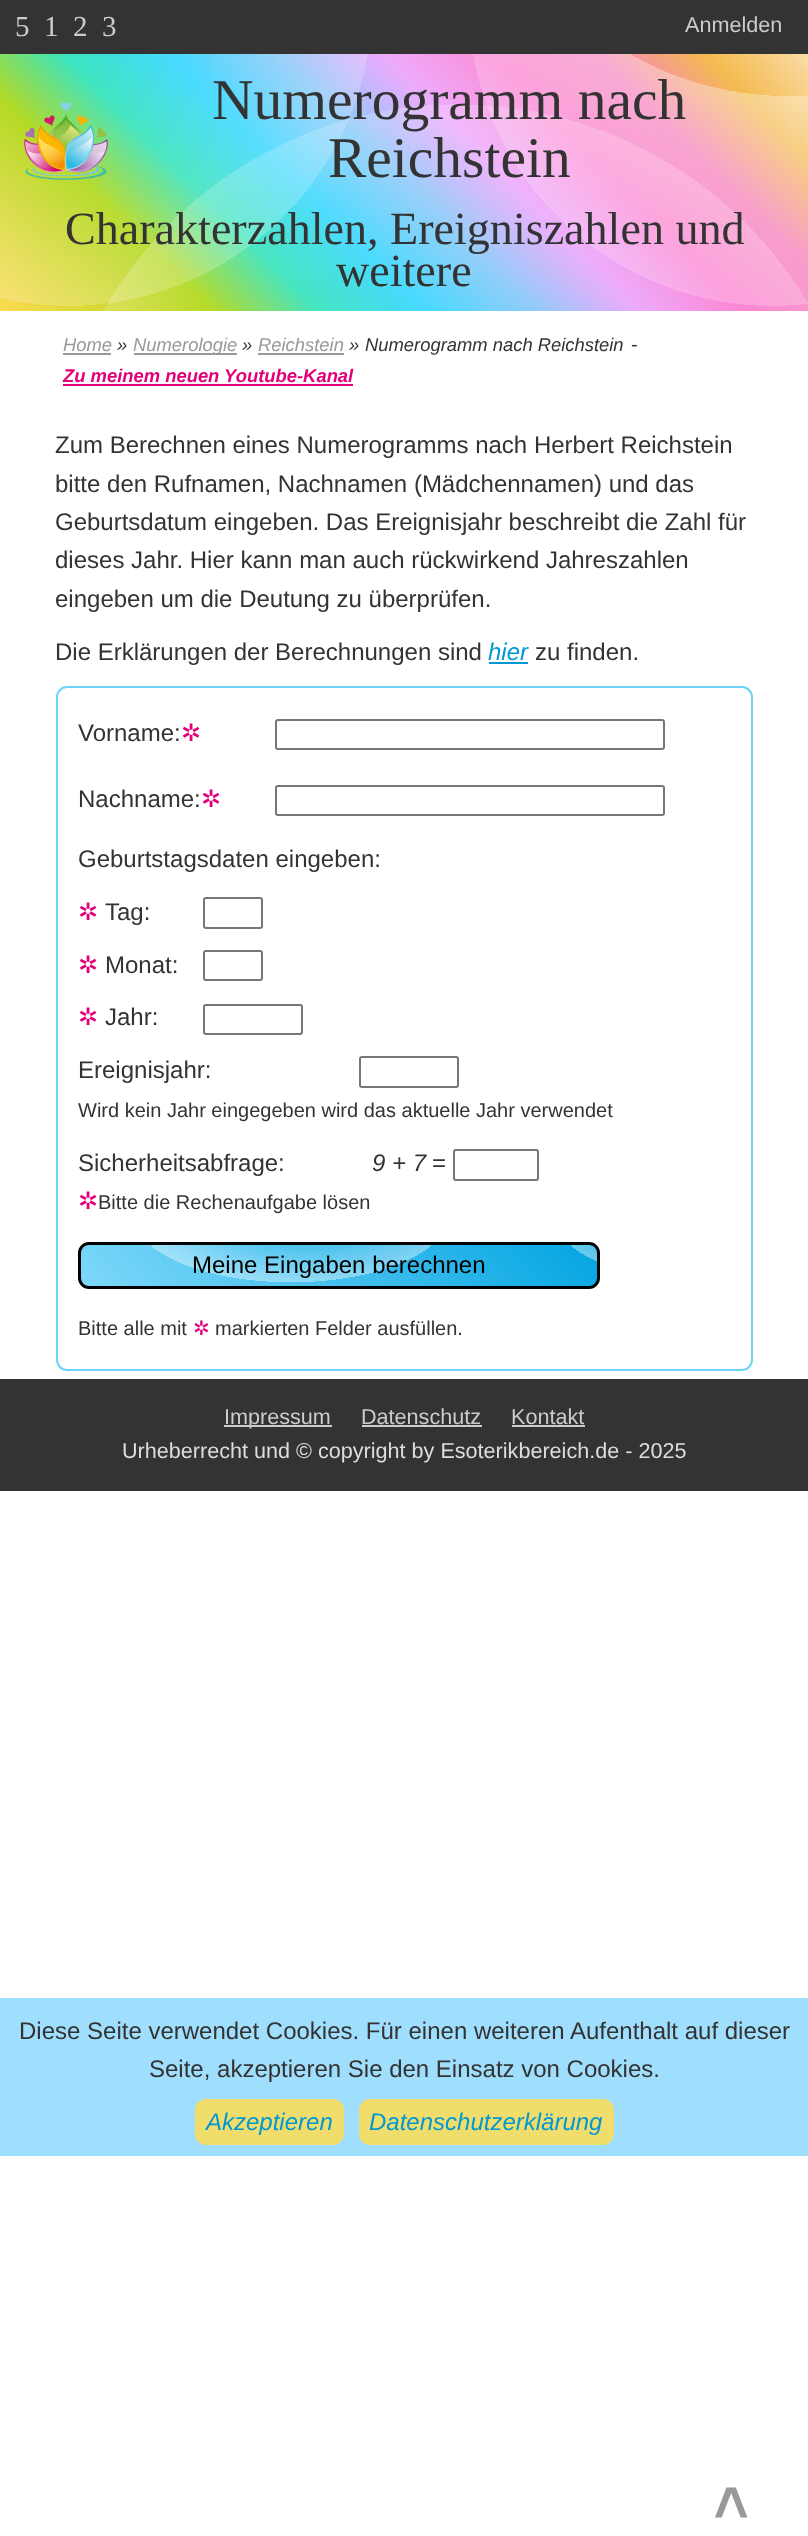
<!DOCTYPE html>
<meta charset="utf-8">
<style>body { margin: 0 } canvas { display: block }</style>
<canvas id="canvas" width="808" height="2536"></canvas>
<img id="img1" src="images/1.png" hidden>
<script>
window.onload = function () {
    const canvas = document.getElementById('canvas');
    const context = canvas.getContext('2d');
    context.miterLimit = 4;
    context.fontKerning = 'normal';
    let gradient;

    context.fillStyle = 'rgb(255, 255, 255)';
    context.fillRect(0, 0, 808, 2536);
    context.fillStyle = 'rgb(51, 51, 51)';
    context.fillRect(0, 0, 808, 54);
    gradient = context.createLinearGradient(138, 449, 671, -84);
    gradient.addColorStop(0, 'rgb(252, 218, 82)');
    gradient.addColorStop(0.2, 'rgb(174, 214, 18)');
    gradient.addColorStop(0.3, 'rgb(53, 227, 188)');
    gradient.addColorStop(0.4, 'rgb(55, 215, 255)');
    gradient.addColorStop(0.5, 'rgb(124, 196, 248)');
    gradient.addColorStop(0.6, 'rgb(232, 150, 252)');
    gradient.addColorStop(0.7, 'rgb(251, 96, 197)');
    gradient.addColorStop(0.8, 'rgb(244, 104, 177)');
    gradient.addColorStop(0.9, 'rgb(242, 174, 49)');
    gradient.addColorStop(1, 'rgb(250, 217, 156)');
    context.fillStyle = gradient;
    context.fillRect(0, 54, 808, 257);
    gradient = context.createRadialGradient(458, 512, 0, 458, 512, 647);
    gradient.addColorStop(0, 'rgba(255, 255, 255, 0)');
    gradient.addColorStop(0.51, 'rgba(255, 255, 255, 0.1)');
    gradient.addColorStop(0.63, 'rgba(255, 255, 255, 0.2)');
    gradient.addColorStop(0.63, 'rgba(255, 255, 255, 0)');
    context.fillStyle = gradient;
    context.fillRect(103, 104, 705, 207);
    gradient = context.createRadialGradient(788, -223, 0, 788, -223, 1029);
    gradient.addColorStop(0, 'rgba(255, 255, 255, 0)');
    gradient.addColorStop(0.31, 'rgba(255, 255, 255, 0.1)');
    gradient.addColorStop(0.31, 'rgba(255, 255, 255, 0.4)');
    gradient.addColorStop(0.64, 'rgba(255, 255, 255, 0)');
    context.fillStyle = gradient;
    context.fillRect(212, 54, 596, 257);
    gradient = context.createRadialGradient(68, 1.5, 0, 68, 1.5, 499);
    gradient.addColorStop(0, 'rgba(255, 255, 255, 0)');
    gradient.addColorStop(0.61, 'rgba(255, 255, 255, 0.2)');
    gradient.addColorStop(0.61, 'rgba(255, 255, 255, 0.4)');
    gradient.addColorStop(0.61, 'rgba(255, 255, 255, 0)');
    context.fillStyle = gradient;
    context.fillRect(0, 54, 368, 252);
    gradient = context.createRadialGradient(773, 1.5, 0, 773, 1.5, 499);
    gradient.addColorStop(0, 'rgba(255, 255, 255, 0)');
    gradient.addColorStop(0.61, 'rgba(255, 255, 255, 0.2)');
    gradient.addColorStop(0.61, 'rgba(255, 255, 255, 0.4)');
    gradient.addColorStop(0.61, 'rgba(255, 255, 255, 0)');
    context.fillStyle = gradient;
    context.fillRect(473, 54, 335, 252);
    context.drawImage(document.getElementById('img1'), 24, 102, 84, 78);
    context.fillStyle = 'rgb(153, 153, 153)';
    context.fillRect(63, 353, 48, 2);
    context.fillRect(134, 353, 103, 2);
    context.fillRect(258, 353, 86, 2);
    context.fillStyle = 'rgb(226, 0, 122)';
    context.fillRect(63, 384, 290, 2);
    context.fillStyle = 'rgb(2, 153, 210)';
    context.fillRect(489, 662, 39, 2);
    context.beginPath();
    context.roundRect(57, 687, 695, 683, 10);
    context.strokeStyle = 'rgb(111, 210, 246)';
    context.lineWidth = 2;
    context.stroke();
    context.beginPath();
    context.roundRect(276, 720, 388, 29, 2);
    context.strokeStyle = 'rgb(118, 118, 118)';
    context.stroke();
    context.beginPath();
    context.roundRect(276, 786, 388, 29, 2);
    context.stroke();
    context.beginPath();
    context.roundRect(204, 898, 58, 30, 2);
    context.stroke();
    context.beginPath();
    context.roundRect(204, 951, 58, 29, 2);
    context.stroke();
    context.beginPath();
    context.roundRect(204, 1005, 98, 29, 2);
    context.stroke();
    context.beginPath();
    context.roundRect(360, 1057, 98, 30, 2);
    context.stroke();
    context.beginPath();
    context.roundRect(454, 1150, 84, 30, 2);
    context.stroke();
    context.save();
    context.beginPath();
    context.roundRect(78, 1242, 522, 47, 11);
    context.clip();
    gradient = context.createLinearGradient(200, 1404, 478, 1126);
    gradient.addColorStop(0, 'rgb(126, 216, 249)');
    gradient.addColorStop(1, 'rgb(3, 165, 226)');
    context.fillStyle = gradient;
    context.fillRect(81, 1245, 516, 41);
    context.restore();
    gradient = context.createRadialGradient(291, 2841.38, 0, 291, 2841.38, 297);
    gradient.addColorStop(0, 'rgba(255, 255, 255, 0)');
    gradient.addColorStop(0.21, 'rgba(255, 255, 255, 0)');
    gradient.addColorStop(0.53, 'rgba(255, 255, 255, 0.4)');
    gradient.addColorStop(0.53, 'rgba(255, 255, 255, 0)');
    context.fillStyle = gradient;
    context.beginPath();
    context.rect(151, 1245, 280, 37);
    context.save();
    context.clip();
    context.scale(1, 127 / 297);
    context.fillRect(0, 0, 808, 5931);
    context.restore();
    gradient = context.createRadialGradient(711, 2841.38, 0, 711, 2841.38, 297);
    gradient.addColorStop(0, 'rgba(255, 255, 255, 0)');
    gradient.addColorStop(0.21, 'rgba(255, 255, 255, 0)');
    gradient.addColorStop(0.53, 'rgba(255, 255, 255, 0.4)');
    gradient.addColorStop(0.53, 'rgba(255, 255, 255, 0)');
    context.fillStyle = gradient;
    context.beginPath();
    context.roundRect(501, 1242, 99, 47, [0, 11, 11, 0]);
    context.save();
    context.clip();
    context.scale(1, 127 / 297);
    context.fillRect(0, 0, 808, 5931);
    context.restore();
    context.beginPath();
    context.roundRect(79.5, 1243.5, 519, 44, 9.5);
    context.strokeStyle = 'rgb(0, 0, 0)';
    context.lineWidth = 3;
    context.stroke();
    context.fillStyle = 'rgb(51, 51, 51)';
    context.fillRect(0, 1379, 808, 112);
    context.fillStyle = 'rgb(204, 204, 204)';
    context.fillRect(224, 1425, 108, 2);
    context.fillRect(362, 1425, 120, 2);
    context.fillRect(512, 1425, 73, 2);
    context.fillStyle = 'rgb(159, 222, 252)';
    context.fillRect(0, 1998, 808, 158);
    context.fillStyle = 'rgb(241, 221, 107)';
    context.beginPath();
    context.roundRect(195, 2099, 149, 46, 11);
    context.fill();
    context.beginPath();
    context.roundRect(359, 2099, 255, 46, 11);
    context.fill();
    context.font = '29px Liberation Serif';
    context.fillStyle = 'rgb(204, 204, 204)';
    context.fillText('5', 15, 36);
    context.fillText('1', 44, 36);
    context.fillText('2', 73, 36);
    context.fillText('3', 102, 36);
    context.font = '21.6px Liberation Sans';
    context.fillText('Anmelden', 685, 32);
    context.font = '57.5px Liberation Serif';
    context.fillStyle = 'rgb(51, 51, 51)';
    context.fillText('Numerogramm nach', 212, 119);
    context.fillText('Reichstein', 328, 177);
    context.font = '46.1px Liberation Serif';
    context.fillText('Charakterzahlen, Ereigniszahlen und', 65, 244);
    context.fillText('weitere', 336, 286);
    context.font = 'italic 18.4px Liberation Sans';
    context.fillStyle = 'rgb(153, 153, 153)';
    context.fillText('Home', 63, 351);
    context.fillStyle = 'rgb(51, 51, 51)';
    context.fillText('»', 117, 351);
    context.fillStyle = 'rgb(153, 153, 153)';
    context.fillText('Numerologie', 133, 351);
    context.fillStyle = 'rgb(51, 51, 51)';
    context.fillText('»', 242, 351);
    context.fillStyle = 'rgb(153, 153, 153)';
    context.fillText('Reichstein', 258, 351);
    context.fillStyle = 'rgb(51, 51, 51)';
    context.fillText('»', 349, 351);
    context.fillText('Numerogramm nach Reichstein', 365, 351);
    context.font = '20px Liberation Sans';
    context.fillText('-', 631, 351);
    context.font = 'italic bold 18.4px Liberation Sans';
    context.fillStyle = 'rgb(226, 0, 122)';
    context.fillText('Zu meinem neuen Youtube-Kanal', 63, 382);
    context.font = '24px Liberation Sans';
    context.fillStyle = 'rgb(51, 51, 51)';
    context.fillText('Zum Berechnen eines Numerogramms nach Herbert Reichstein', 55, 453);
    context.fillText('bitte den Rufnamen, Nachnamen (Mädchennamen) und das', 55, 492);
    context.fillText('Geburtsdatum eingeben. Das Ereignisjahr beschreibt die Zahl für', 55, 530);
    context.fillText('dieses Jahr. Hier kann man auch rückwirkend Jahreszahlen', 55, 568);
    context.fillText('eingeben um die Deutung zu überprüfen.', 55, 607);
    context.fillText('Die Erklärungen der Berechnungen sind', 55, 660);
    context.font = 'italic 24px Liberation Sans';
    context.fillStyle = 'rgb(2, 153, 210)';
    context.fillText('hier', 488, 660);
    context.font = '24px Liberation Sans';
    context.fillStyle = 'rgb(51, 51, 51)';
    context.fillText('zu finden.', 535, 660);
    context.fillText('Vorname:', 78, 741);
    context.font = '24px DejaVu Sans';
    context.fillStyle = 'rgb(226, 0, 122)';
    context.fillText('✲', 181, 741);
    context.font = '24px Liberation Sans';
    context.fillStyle = 'rgb(51, 51, 51)';
    context.fillText('Nachname:', 78, 807);
    context.font = '24px DejaVu Sans';
    context.fillStyle = 'rgb(226, 0, 122)';
    context.fillText('✲', 201, 807);
    context.font = '24px Liberation Sans';
    context.fillStyle = 'rgb(51, 51, 51)';
    context.fillText('Geburtstagsdaten eingeben:', 78, 867);
    context.font = '24px DejaVu Sans';
    context.fillStyle = 'rgb(226, 0, 122)';
    context.fillText('✲', 78, 920);
    context.font = '24px Liberation Sans';
    context.fillStyle = 'rgb(51, 51, 51)';
    context.fillText('Tag:', 105, 920);
    context.font = '24px DejaVu Sans';
    context.fillStyle = 'rgb(226, 0, 122)';
    context.fillText('✲', 78, 973);
    context.font = '24px Liberation Sans';
    context.fillStyle = 'rgb(51, 51, 51)';
    context.fillText('Monat:', 105, 973);
    context.font = '24px DejaVu Sans';
    context.fillStyle = 'rgb(226, 0, 122)';
    context.fillText('✲', 78, 1025);
    context.font = '24px Liberation Sans';
    context.fillStyle = 'rgb(51, 51, 51)';
    context.fillText('Jahr:', 105, 1025);
    context.fillText('Ereignisjahr:', 78, 1078);
    context.font = '20px Liberation Sans';
    context.fillText('Wird kein Jahr eingegeben wird das aktuelle Jahr verwendet', 78, 1117);
    context.font = '24px Liberation Sans';
    context.fillText('Sicherheitsabfrage:', 78, 1171);
    context.font = 'italic 24px Liberation Sans';
    context.fillText('9 + 7', 372, 1171);
    context.font = '24px Liberation Sans';
    context.fillText('=', 432, 1171);
    context.font = '24px DejaVu Sans';
    context.fillStyle = 'rgb(226, 0, 122)';
    context.fillText('✲', 78, 1209);
    context.font = '20px Liberation Sans';
    context.fillStyle = 'rgb(51, 51, 51)';
    context.fillText('Bitte die Rechenaufgabe lösen', 98, 1209);
    context.font = '24px Liberation Sans';
    context.fillStyle = 'rgb(0, 0, 0)';
    context.fillText('Meine Eingaben berechnen', 192, 1273);
    context.font = '20px Liberation Sans';
    context.fillStyle = 'rgb(51, 51, 51)';
    context.fillText('Bitte alle mit', 78, 1335);
    context.font = '20px DejaVu Sans';
    context.fillStyle = 'rgb(226, 0, 122)';
    context.fillText('✲', 193, 1335);
    context.font = '20px Liberation Sans';
    context.fillStyle = 'rgb(51, 51, 51)';
    context.fillText('markierten Felder ausfüllen.', 215, 1335);
    context.font = '21.6px Liberation Sans';
    context.fillStyle = 'rgb(204, 204, 204)';
    context.fillText('Impressum', 224, 1424);
    context.fillText('Datenschutz', 361, 1424);
    context.fillText('Kontakt', 511, 1424);
    context.fillStyle = 'rgb(221, 221, 221)';
    context.fillText('Urheberrecht und © copyright by Esoterikbereich.de - 2025', 122, 1458);
    context.font = '24px Liberation Sans';
    context.fillStyle = 'rgb(51, 51, 51)';
    context.fillText('Diese Seite verwendet Cookies. Für einen weiteren Aufenthalt auf dieser', 19, 2039);
    context.fillText('Seite, akzeptieren Sie den Einsatz von Cookies.', 149, 2077);
    context.font = 'italic 24px Liberation Sans';
    context.fillStyle = 'rgb(2, 153, 210)';
    context.fillText('Akzeptieren', 206, 2130);
    context.fillText('Datenschutzerklärung', 369, 2130);
    context.font = 'bold 60px Liberation Sans';
    context.fillStyle = 'rgb(153, 153, 153)';
    context.save();
    context.translate(751, 2520);
    context.rotate(-90 * Math.PI / 180);
    context.fillText('>', 0, 0);
    context.restore();
};
</script>
